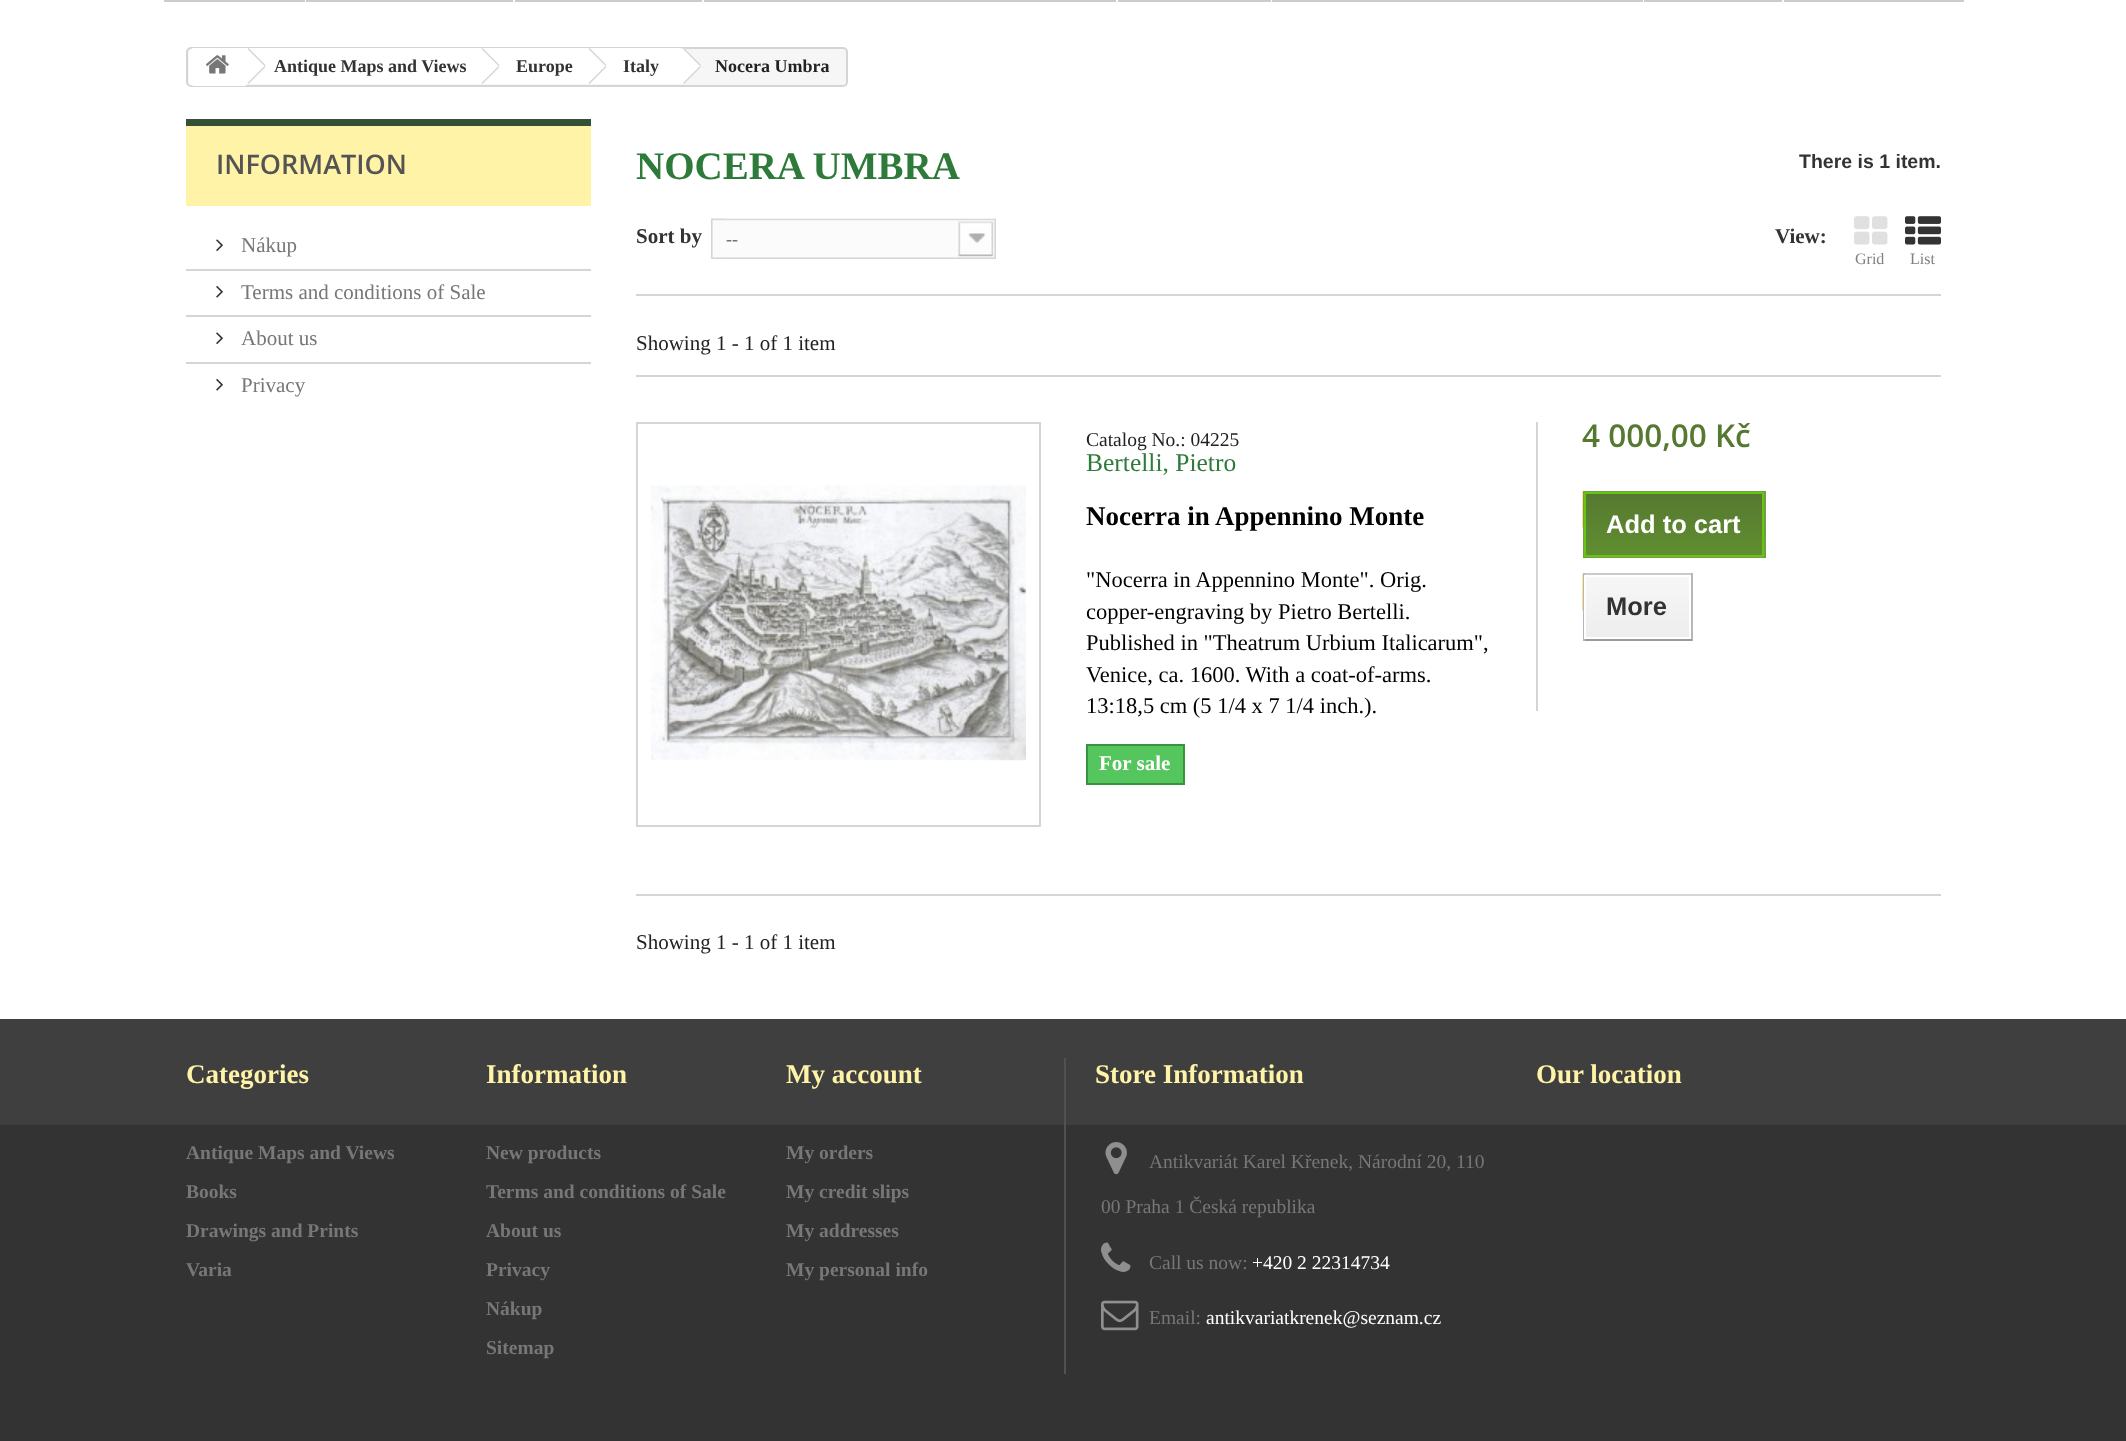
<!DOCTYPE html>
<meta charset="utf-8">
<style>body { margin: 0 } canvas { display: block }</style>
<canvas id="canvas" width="2126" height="1441"></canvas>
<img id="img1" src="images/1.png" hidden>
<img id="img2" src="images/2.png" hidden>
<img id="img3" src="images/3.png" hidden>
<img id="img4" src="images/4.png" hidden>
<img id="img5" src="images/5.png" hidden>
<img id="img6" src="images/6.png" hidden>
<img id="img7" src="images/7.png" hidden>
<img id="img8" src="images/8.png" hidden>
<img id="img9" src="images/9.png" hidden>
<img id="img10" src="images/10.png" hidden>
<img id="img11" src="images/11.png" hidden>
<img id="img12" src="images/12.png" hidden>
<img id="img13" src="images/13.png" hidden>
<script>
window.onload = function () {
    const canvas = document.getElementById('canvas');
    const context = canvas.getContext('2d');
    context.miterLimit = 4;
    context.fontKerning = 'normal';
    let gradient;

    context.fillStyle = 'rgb(51, 51, 51)';
    context.fillRect(0, 0, 2126, 1441);
    context.fillStyle = 'rgb(255, 255, 255)';
    context.fillRect(0, 0, 2126, 1019);
    context.fillStyle = 'rgb(204, 204, 204)';
    context.fillRect(164, 0, 1800, 2);
    context.fillStyle = 'rgb(255, 255, 230)';
    context.fillRect(305, 0, 2, 2);
    context.fillRect(513, 0, 2, 2);
    context.fillStyle = 'rgb(204, 204, 204)';
    context.fillRect(306, 0, 1, 2);
    context.fillStyle = 'rgb(255, 255, 230)';
    context.fillRect(702, 0, 2, 2);
    context.fillRect(1116, 0, 2, 2);
    context.fillRect(1271, 0, 2, 2);
    context.fillRect(1643, 0, 2, 2);
    context.fillStyle = 'rgb(204, 204, 204)';
    context.fillRect(1272, 0, 1, 2);
    context.fillStyle = 'rgb(255, 255, 230)';
    context.fillRect(1782, 0, 2, 2);
    context.fillStyle = 'rgb(204, 204, 204)';
    context.fillRect(1644, 0, 1, 2);
    context.fillStyle = 'rgb(246, 246, 246)';
    context.beginPath();
    context.roundRect(187, 48, 660, 38, 4);
    context.fill();
    context.strokeStyle = 'rgb(214, 212, 212)';
    context.lineWidth = 2;
    context.stroke();
    context.fillStyle = 'rgb(255, 255, 255)';
    context.beginPath();
    context.roundRect(189, 48, 57, 38, [5, 0, 0, 5]);
    context.fill();
    context.drawImage(document.getElementById('img1'), 205, 55, 24, 19);
    context.fillRect(246, 48, 237, 36);
    context.fillStyle = 'rgb(214, 212, 212)';
    context.beginPath();
    context.moveTo(248.5, 48);
    context.lineTo(265.5, 65);
    context.lineTo(264.5, 66);
    context.lineTo(247.5, 49);
    context.closePath();
    context.moveTo(264.5, 66);
    context.lineTo(265.5, 67);
    context.lineTo(248.5, 84);
    context.lineTo(247.5, 83);
    context.closePath();
    context.fill();
    context.fillStyle = 'rgb(255, 255, 255)';
    context.beginPath();
    context.moveTo(492, 49);
    context.lineTo(507, 64);
    context.bezierCurveTo(508, 65, 508, 67, 507, 68);
    context.lineTo(492, 83);
    context.bezierCurveTo(491, 84, 489, 84, 488, 83);
    context.lineTo(473, 68);
    context.bezierCurveTo(472, 67, 472, 65, 473, 64);
    context.lineTo(488, 49);
    context.bezierCurveTo(489, 48, 491, 48, 492, 49);
    context.closePath();
    context.fill();
    context.fillRect(483, 48, 107, 36);
    context.fillStyle = 'rgb(214, 212, 212)';
    context.beginPath();
    context.moveTo(482.5, 48);
    context.lineTo(499.5, 65);
    context.lineTo(498.5, 66);
    context.lineTo(481.5, 49);
    context.closePath();
    context.moveTo(498.5, 66);
    context.lineTo(499.5, 67);
    context.lineTo(482.5, 84);
    context.lineTo(481.5, 83);
    context.closePath();
    context.fill();
    context.fillStyle = 'rgb(255, 255, 255)';
    context.beginPath();
    context.moveTo(599, 49);
    context.lineTo(614, 64);
    context.bezierCurveTo(615, 65, 615, 67, 614, 68);
    context.lineTo(599, 83);
    context.bezierCurveTo(597.5, 84, 596, 84, 594.5, 83);
    context.lineTo(580, 68);
    context.bezierCurveTo(578.5, 67, 578.5, 65, 580, 64);
    context.lineTo(594.5, 49);
    context.bezierCurveTo(596, 48, 597.5, 48, 599, 49);
    context.closePath();
    context.fill();
    context.fillRect(590, 48, 91, 36);
    context.fillStyle = 'rgb(214, 212, 212)';
    context.beginPath();
    context.moveTo(589.5, 48);
    context.lineTo(606.5, 65);
    context.lineTo(605.5, 66);
    context.lineTo(588.5, 49);
    context.closePath();
    context.moveTo(605.5, 66);
    context.lineTo(606.5, 67);
    context.lineTo(589.5, 84);
    context.lineTo(588.5, 83);
    context.closePath();
    context.fill();
    context.fillStyle = 'rgb(255, 255, 255)';
    context.beginPath();
    context.moveTo(685, 49);
    context.lineTo(700, 64);
    context.bezierCurveTo(701, 65, 701, 67, 700, 68);
    context.lineTo(685, 83);
    context.bezierCurveTo(684, 84, 682, 84, 680.5, 83);
    context.lineTo(666, 68);
    context.bezierCurveTo(664.5, 67, 664.5, 65, 666, 64);
    context.lineTo(680.5, 49);
    context.bezierCurveTo(682, 48, 684, 48, 685, 49);
    context.closePath();
    context.fill();
    context.fillStyle = 'rgb(214, 212, 212)';
    context.beginPath();
    context.moveTo(684, 48);
    context.lineTo(701, 65);
    context.lineTo(700, 66);
    context.lineTo(683, 49);
    context.closePath();
    context.moveTo(700, 66);
    context.lineTo(701, 67);
    context.lineTo(684, 84);
    context.lineTo(683, 83);
    context.closePath();
    context.fill();
    context.fillStyle = 'rgb(255, 243, 167)';
    context.fillRect(186, 126, 405, 80);
    context.fillStyle = 'rgb(53, 81, 53)';
    context.fillRect(186, 119, 405, 7);
    context.drawImage(document.getElementById('img2'), 216, 239, 7, 12);
    context.fillStyle = 'rgb(214, 212, 212)';
    context.fillRect(186, 269, 405, 2);
    context.drawImage(document.getElementById('img3'), 216, 286, 7, 12);
    context.fillRect(186, 315, 405, 2);
    context.drawImage(document.getElementById('img2'), 216, 332, 7, 12);
    context.fillRect(186, 362, 405, 2);
    context.drawImage(document.getElementById('img3'), 216, 379, 7, 12);
    context.fillRect(636, 294, 1305, 2);
    context.drawImage(document.getElementById('img4'), 711, 218, 16, 41);
    context.drawImage(document.getElementById('img5'), 726, 218, 270, 41);
    context.drawImage(document.getElementById('img6'), 1854, 216, 34, 29);
    context.drawImage(document.getElementById('img7'), 1905, 216, 36, 29);
    context.fillRect(636, 375, 1305, 2);
    context.strokeRect(637, 423, 403, 403);
    context.drawImage(document.getElementById('img8'), 651, 485, 375, 276);
    context.fillStyle = 'rgb(85, 198, 94)';
    context.beginPath();
    context.rect(1087, 745, 97, 39);
    context.fill();
    context.strokeStyle = 'rgb(54, 148, 62)';
    context.stroke();
    context.fillStyle = 'rgb(214, 212, 212)';
    context.fillRect(1536, 422, 2, 289);
    context.drawImage(document.getElementById('img9'), 1582, 491, 1, 37);
    context.strokeStyle = 'rgb(113, 159, 65)';
    context.strokeRect(1584, 492, 181, 65);
    gradient = context.createLinearGradient(1674, 494, 1674, 555);
    gradient.addColorStop(0, 'rgb(86, 121, 49)');
    gradient.addColorStop(1, 'rgb(95, 142, 47)');
    context.fillStyle = gradient;
    context.fillRect(1586, 494, 176, 61);
    context.strokeStyle = 'rgb(105, 196, 18)';
    context.strokeRect(1585, 493, 178, 63);
    context.drawImage(document.getElementById('img10'), 1582, 574, 1, 37);
    context.fillStyle = 'rgb(202, 202, 202)';
    context.fillRect(1583, 573, 109, 2);
    context.fillStyle = 'rgb(183, 183, 183)';
    context.fillRect(1691, 573, 2, 68);
    context.fillStyle = 'rgb(154, 154, 154)';
    context.fillRect(1583, 639, 109, 2);
    context.fillStyle = 'rgb(183, 183, 183)';
    context.fillRect(1583, 573, 2, 68);
    gradient = context.createLinearGradient(1637, 576, 1637, 638);
    gradient.addColorStop(0, 'rgb(247, 247, 247)');
    gradient.addColorStop(1, 'rgb(237, 237, 237)');
    context.fillStyle = gradient;
    context.fillRect(1586, 577, 103, 60);
    context.strokeStyle = 'rgb(255, 255, 255)';
    context.strokeRect(1585, 576, 105, 62);
    context.fillStyle = 'rgb(214, 212, 212)';
    context.fillRect(636, 894, 1305, 2);
    context.fillStyle = 'rgb(63, 63, 63)';
    context.fillRect(0, 1019, 2126, 106);
    context.fillStyle = 'rgb(81, 81, 81)';
    context.fillRect(1064, 1058, 2, 316);
    context.drawImage(document.getElementById('img11'), 1105, 1142, 22, 33);
    context.drawImage(document.getElementById('img12'), 1101, 1242, 30, 30);
    context.drawImage(document.getElementById('img13'), 1101, 1300, 38, 31);
    context.font = 'bold 18px Liberation Serif';
    context.fillStyle = 'rgb(51, 51, 51)';
    context.fillText('Antique Maps and Views', 274, 72);
    context.fillText('Europe', 516, 72);
    context.fillText('Italy', 623, 72);
    context.fillStyle = 'rgb(34, 34, 34)';
    context.fillText('Nocera Umbra', 715, 72);
    context.font = '600 27px Open Sans';
    context.fillStyle = 'rgb(85, 84, 84)';
    context.fillText('INFORMATION', 216, 174);
    context.font = '21px Liberation Serif';
    context.fillStyle = 'rgb(119, 119, 119)';
    context.fillText('Nákup', 241, 252);
    context.fillText('Terms and conditions of Sale', 241, 299);
    context.fillText('About us', 241, 345);
    context.fillText('Privacy', 241, 392);
    context.font = 'bold 39px Liberation Serif';
    context.fillStyle = 'rgb(46, 122, 58)';
    context.fillText('NOCERA UMBRA', 636, 179);
    context.font = 'bold 19.5px Liberation Sans';
    context.fillStyle = 'rgb(51, 51, 51)';
    context.fillText('There is 1 item.', 1799, 168);
    context.font = 'bold 21px Liberation Serif';
    context.fillText('Sort by', 636, 243);
    context.font = '18px Liberation Serif';
    context.fillStyle = 'rgb(102, 102, 102)';
    context.fillText('--', 726, 245);
    context.font = 'bold 21px Liberation Serif';
    context.fillStyle = 'rgb(51, 51, 51)';
    context.fillText('View:', 1775, 243);
    context.font = '16px Liberation Serif';
    context.fillStyle = 'rgb(128, 128, 128)';
    context.fillText('Grid', 1855, 264);
    context.fillText('List', 1910, 264);
    context.font = '21px Liberation Serif';
    context.fillStyle = 'rgb(34, 34, 34)';
    context.fillText('Showing 1 - 1 of 1 item', 636, 350);
    context.font = '19.5px Liberation Serif';
    context.fillText('Catalog No.: 04225', 1086, 446);
    context.font = '25.5px Liberation Serif';
    context.fillStyle = 'rgb(46, 122, 58)';
    context.fillText('Bertelli, Pietro', 1086, 471);
    context.font = 'bold 27px Liberation Serif';
    context.fillStyle = 'rgb(0, 0, 0)';
    context.fillText('Nocerra in Appennino Monte', 1086, 525);
    context.font = '22.5px Liberation Serif';
    context.fillText('"Nocerra in Appennino Monte". Orig.', 1086, 587);
    context.fillText('copper-engraving by Pietro Bertelli.', 1086, 619);
    context.fillText('Published in "Theatrum Urbium Italicarum",', 1086, 650);
    context.fillText('Venice, ca. 1600. With a coat-of-arms.', 1086, 682);
    context.fillText('13:18,5 cm (5 1/4 x 7 1/4 inch.).', 1086, 713);
    context.font = 'bold 21px Liberation Serif';
    context.fillStyle = 'rgb(255, 255, 255)';
    context.fillText('For sale', 1099, 770);
    context.font = '600 31.5px Open Sans';
    context.fillStyle = 'rgb(86, 121, 49)';
    context.fillText('4 000,00 Kč', 1582, 447);
    context.font = 'bold 25.5px Liberation Sans';
    context.fillStyle = 'rgb(255, 255, 255)';
    context.fillText('Add to cart', 1606, 533);
    context.fillStyle = 'rgb(51, 51, 51)';
    context.fillText('More', 1606, 615);
    context.font = '21px Liberation Serif';
    context.fillStyle = 'rgb(34, 34, 34)';
    context.fillText('Showing 1 - 1 of 1 item', 636, 949);
    context.font = 'bold 27px Liberation Serif';
    context.fillStyle = 'rgb(255, 243, 167)';
    context.fillText('Categories', 186, 1083);
    context.font = 'bold 19.5px Liberation Serif';
    context.fillStyle = 'rgb(119, 119, 119)';
    context.fillText('Antique Maps and Views', 186, 1159);
    context.fillText('Books', 186, 1198);
    context.fillText('Drawings and Prints', 186, 1237);
    context.fillText('Varia', 186, 1276);
    context.font = 'bold 27px Liberation Serif';
    context.fillStyle = 'rgb(255, 243, 167)';
    context.fillText('Information', 486, 1083);
    context.font = 'bold 19.5px Liberation Serif';
    context.fillStyle = 'rgb(119, 119, 119)';
    context.fillText('New products', 486, 1159);
    context.fillText('Terms and conditions of Sale', 486, 1198);
    context.fillText('About us', 486, 1237);
    context.fillText('Privacy', 486, 1276);
    context.fillText('Nákup', 486, 1315);
    context.fillText('Sitemap', 486, 1354);
    context.font = 'bold 27px Liberation Serif';
    context.fillStyle = 'rgb(255, 243, 167)';
    context.fillText('My account', 786, 1083);
    context.font = 'bold 19.5px Liberation Serif';
    context.fillStyle = 'rgb(119, 119, 119)';
    context.fillText('My orders', 786, 1159);
    context.fillText('My credit slips', 786, 1198);
    context.fillText('My addresses', 786, 1237);
    context.fillText('My personal info', 786, 1276);
    context.font = 'bold 27px Liberation Serif';
    context.fillStyle = 'rgb(255, 243, 167)';
    context.fillText('Store Information', 1095, 1083);
    context.font = '19.5px Liberation Serif';
    context.fillStyle = 'rgb(119, 119, 119)';
    context.fillText('Antikvariát Karel Křenek, Národní 20, 110', 1149, 1168);
    context.fillText('00 Praha 1 Česká republika', 1101, 1213);
    context.fillText('Call us now:', 1149, 1269);
    context.fillStyle = 'rgb(255, 255, 255)';
    context.fillText('+420 2 22314734', 1252, 1269);
    context.fillStyle = 'rgb(119, 119, 119)';
    context.fillText('Email:', 1149, 1324);
    context.fillStyle = 'rgb(255, 255, 255)';
    context.fillText('antikvariatkrenek@seznam.cz', 1206, 1324);
    context.font = 'bold 27px Liberation Serif';
    context.fillStyle = 'rgb(255, 243, 167)';
    context.fillText('Our location', 1536, 1083);
};
</script>
